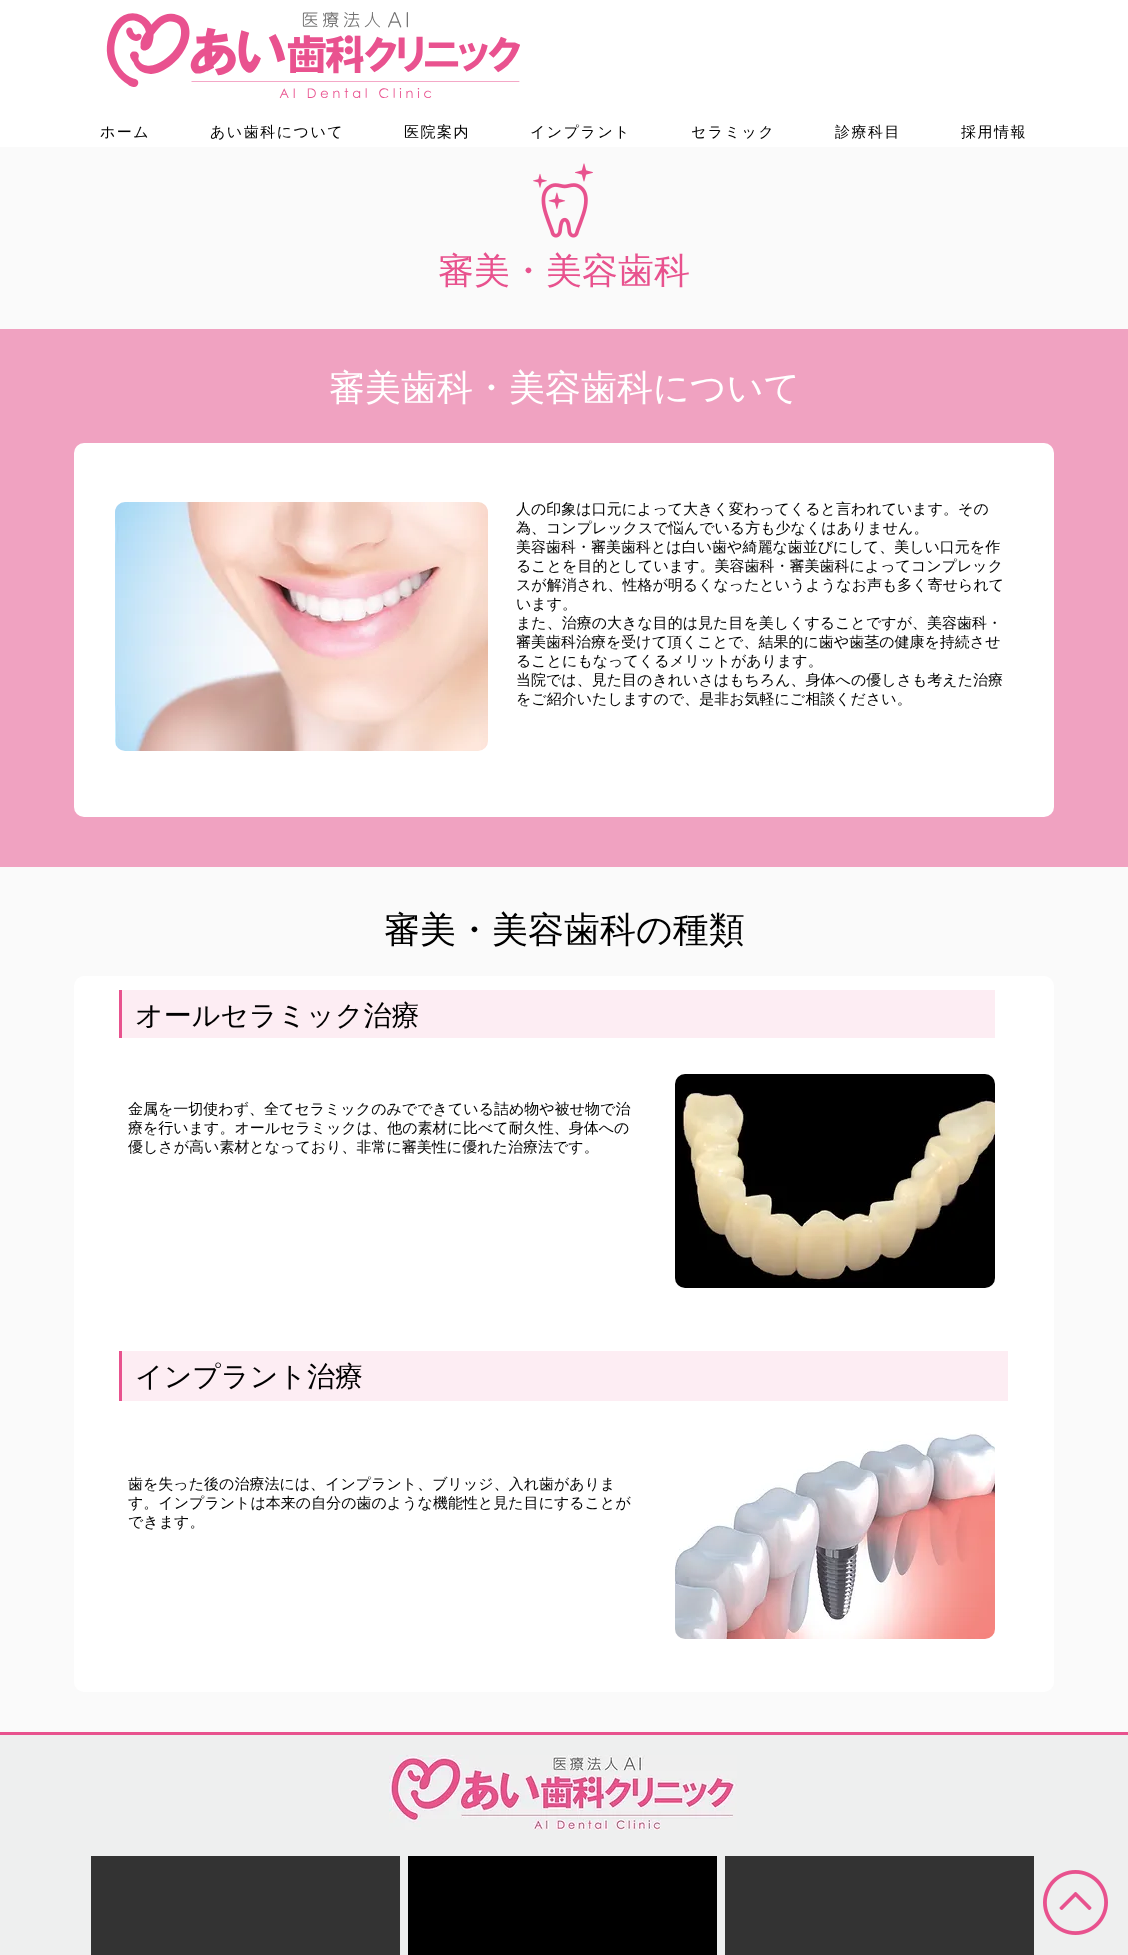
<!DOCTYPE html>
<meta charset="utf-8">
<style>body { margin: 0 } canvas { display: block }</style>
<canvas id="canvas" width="1128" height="1955"></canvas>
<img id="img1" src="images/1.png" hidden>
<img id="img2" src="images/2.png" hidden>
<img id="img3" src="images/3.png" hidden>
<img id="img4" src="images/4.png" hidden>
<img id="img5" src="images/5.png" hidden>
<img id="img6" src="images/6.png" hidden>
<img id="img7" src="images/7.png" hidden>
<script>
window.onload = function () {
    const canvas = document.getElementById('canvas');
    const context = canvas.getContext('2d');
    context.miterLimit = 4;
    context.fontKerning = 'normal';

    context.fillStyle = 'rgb(255, 255, 255)';
    context.fillRect(0, 0, 1128, 1955);
    context.drawImage(document.getElementById('img1'), 106, 11, 414, 87);
    context.fillStyle = 'rgb(250, 250, 250)';
    context.fillRect(0, 147, 1128, 182);
    context.drawImage(document.getElementById('img2'), 533, 163, 60, 75);
    context.fillStyle = 'rgb(240, 162, 193)';
    context.fillRect(0, 329, 1128, 538);
    context.fillStyle = 'rgb(255, 255, 255)';
    context.beginPath();
    context.roundRect(74, 443, 980, 374, 10);
    context.fill();
    context.drawImage(document.getElementById('img3'), 115, 502, 373, 249);
    context.fillStyle = 'rgb(250, 250, 250)';
    context.fillRect(0, 867, 1128, 865);
    context.fillStyle = 'rgb(255, 255, 255)';
    context.beginPath();
    context.roundRect(74, 976, 980, 716, 10);
    context.fill();
    context.fillStyle = 'rgb(232, 82, 142)';
    context.fillRect(119, 990, 3, 48);
    context.fillStyle = 'rgb(253, 237, 243)';
    context.fillRect(122, 990, 873, 48);
    context.drawImage(document.getElementById('img4'), 675, 1074, 320, 214);
    context.fillStyle = 'rgb(232, 82, 142)';
    context.fillRect(119, 1351, 3, 50);
    context.fillStyle = 'rgb(253, 237, 243)';
    context.fillRect(122, 1351, 886, 50);
    context.drawImage(document.getElementById('img5'), 675, 1433, 320, 206);
    context.fillStyle = 'rgb(238, 239, 239)';
    context.fillRect(0, 1735, 1128, 220);
    context.fillStyle = 'rgb(232, 82, 142)';
    context.fillRect(0, 1732, 1128, 3);
    context.drawImage(document.getElementById('img6'), 389, 1755, 348, 75);
    context.fillStyle = 'rgb(51, 51, 51)';
    context.fillRect(91, 1856, 309, 99);
    context.fillStyle = 'rgb(0, 0, 0)';
    context.fillRect(408, 1856, 309, 99);
    context.fillStyle = 'rgb(51, 51, 51)';
    context.fillRect(725, 1856, 309, 99);
    context.drawImage(document.getElementById('img7'), 1043, 1870, 65, 65);
    context.letterSpacing = '1.5px';
    context.font = '500 15px WenQuanYi Zen Hei';
    context.fillStyle = 'rgb(0, 0, 0)';
    context.fillText('ホーム', 100, 137);
    context.fillText('あい歯科について', 210, 137);
    context.fillText('医院案内', 404, 137);
    context.fillText('インプラント', 530, 137);
    context.fillText('セラミック', 691, 137);
    context.fillText('診療科目', 835, 137);
    context.fillText('採用情報', 961, 137);
    context.letterSpacing = '0px';
    context.font = '500 36px WenQuanYi Zen Hei';
    context.fillStyle = 'rgb(232, 82, 142)';
    context.fillText('審美・美容歯科', 438, 283);
    context.fillStyle = 'rgb(255, 255, 255)';
    context.fillText('審美歯科・美容歯科について', 329, 400);
    context.font = '500 15px WenQuanYi Zen Hei';
    context.fillStyle = 'rgb(0, 0, 0)';
    context.fillText('人の印象は口元によって大きく変わってくると言われています。その', 516, 514);
    context.fillText('為、コンプレックスで悩んでいる方も少なくはありません。', 516, 533);
    context.fillText('美容歯科・審美歯科とは白い歯や綺麗な歯並びにして、美しい口元を作', 516, 552);
    context.fillText('ることを目的としています。美容歯科・審美歯科によってコンプレック', 516, 571);
    context.fillText('スが解消され、性格が明るくなったというようなお声も多く寄せられて', 516, 590);
    context.fillText('います。', 516, 609);
    context.fillText('また、治療の大きな目的は見た目を美しくすることですが、美容歯科・', 516, 628);
    context.fillText('審美歯科治療を受けて頂くことで、結果的に歯や歯茎の健康を持続させ', 516, 647);
    context.fillText('ることにもなってくるメリットがあります。', 516, 666);
    context.fillText('当院では、見た目のきれいさはもちろん、身体への優しさも考えた治療', 516, 685);
    context.fillText('をご紹介いたしますので、是非お気軽にご相談ください。', 516, 704);
    context.font = '500 36px WenQuanYi Zen Hei';
    context.fillText('審美・美容歯科の種類', 384, 942);
    context.font = '500 28px WenQuanYi Zen Hei';
    context.fillText('オールセラミック治療', 135, 1025);
    context.font = '500 15px WenQuanYi Zen Hei';
    context.fillText('金属を一切使わず、全てセラミックのみでできている詰め物や被せ物で治', 128, 1114);
    context.fillText('療を行います。オールセラミックは、他の素材に比べて耐久性、身体への', 128, 1133);
    context.fillText('優しさが高い素材となっており、非常に審美性に優れた治療法です。', 128, 1152);
    context.font = '500 28px WenQuanYi Zen Hei';
    context.fillText('インプラント治療', 135, 1386);
    context.font = '500 15px WenQuanYi Zen Hei';
    context.fillText('歯を失った後の治療法には、インプラント、ブリッジ、入れ歯がありま', 128, 1489);
    context.fillText('す。インプラントは本来の自分の歯のような機能性と見た目にすることが', 128, 1508);
    context.fillText('できます。', 128, 1527);
};
</script>
